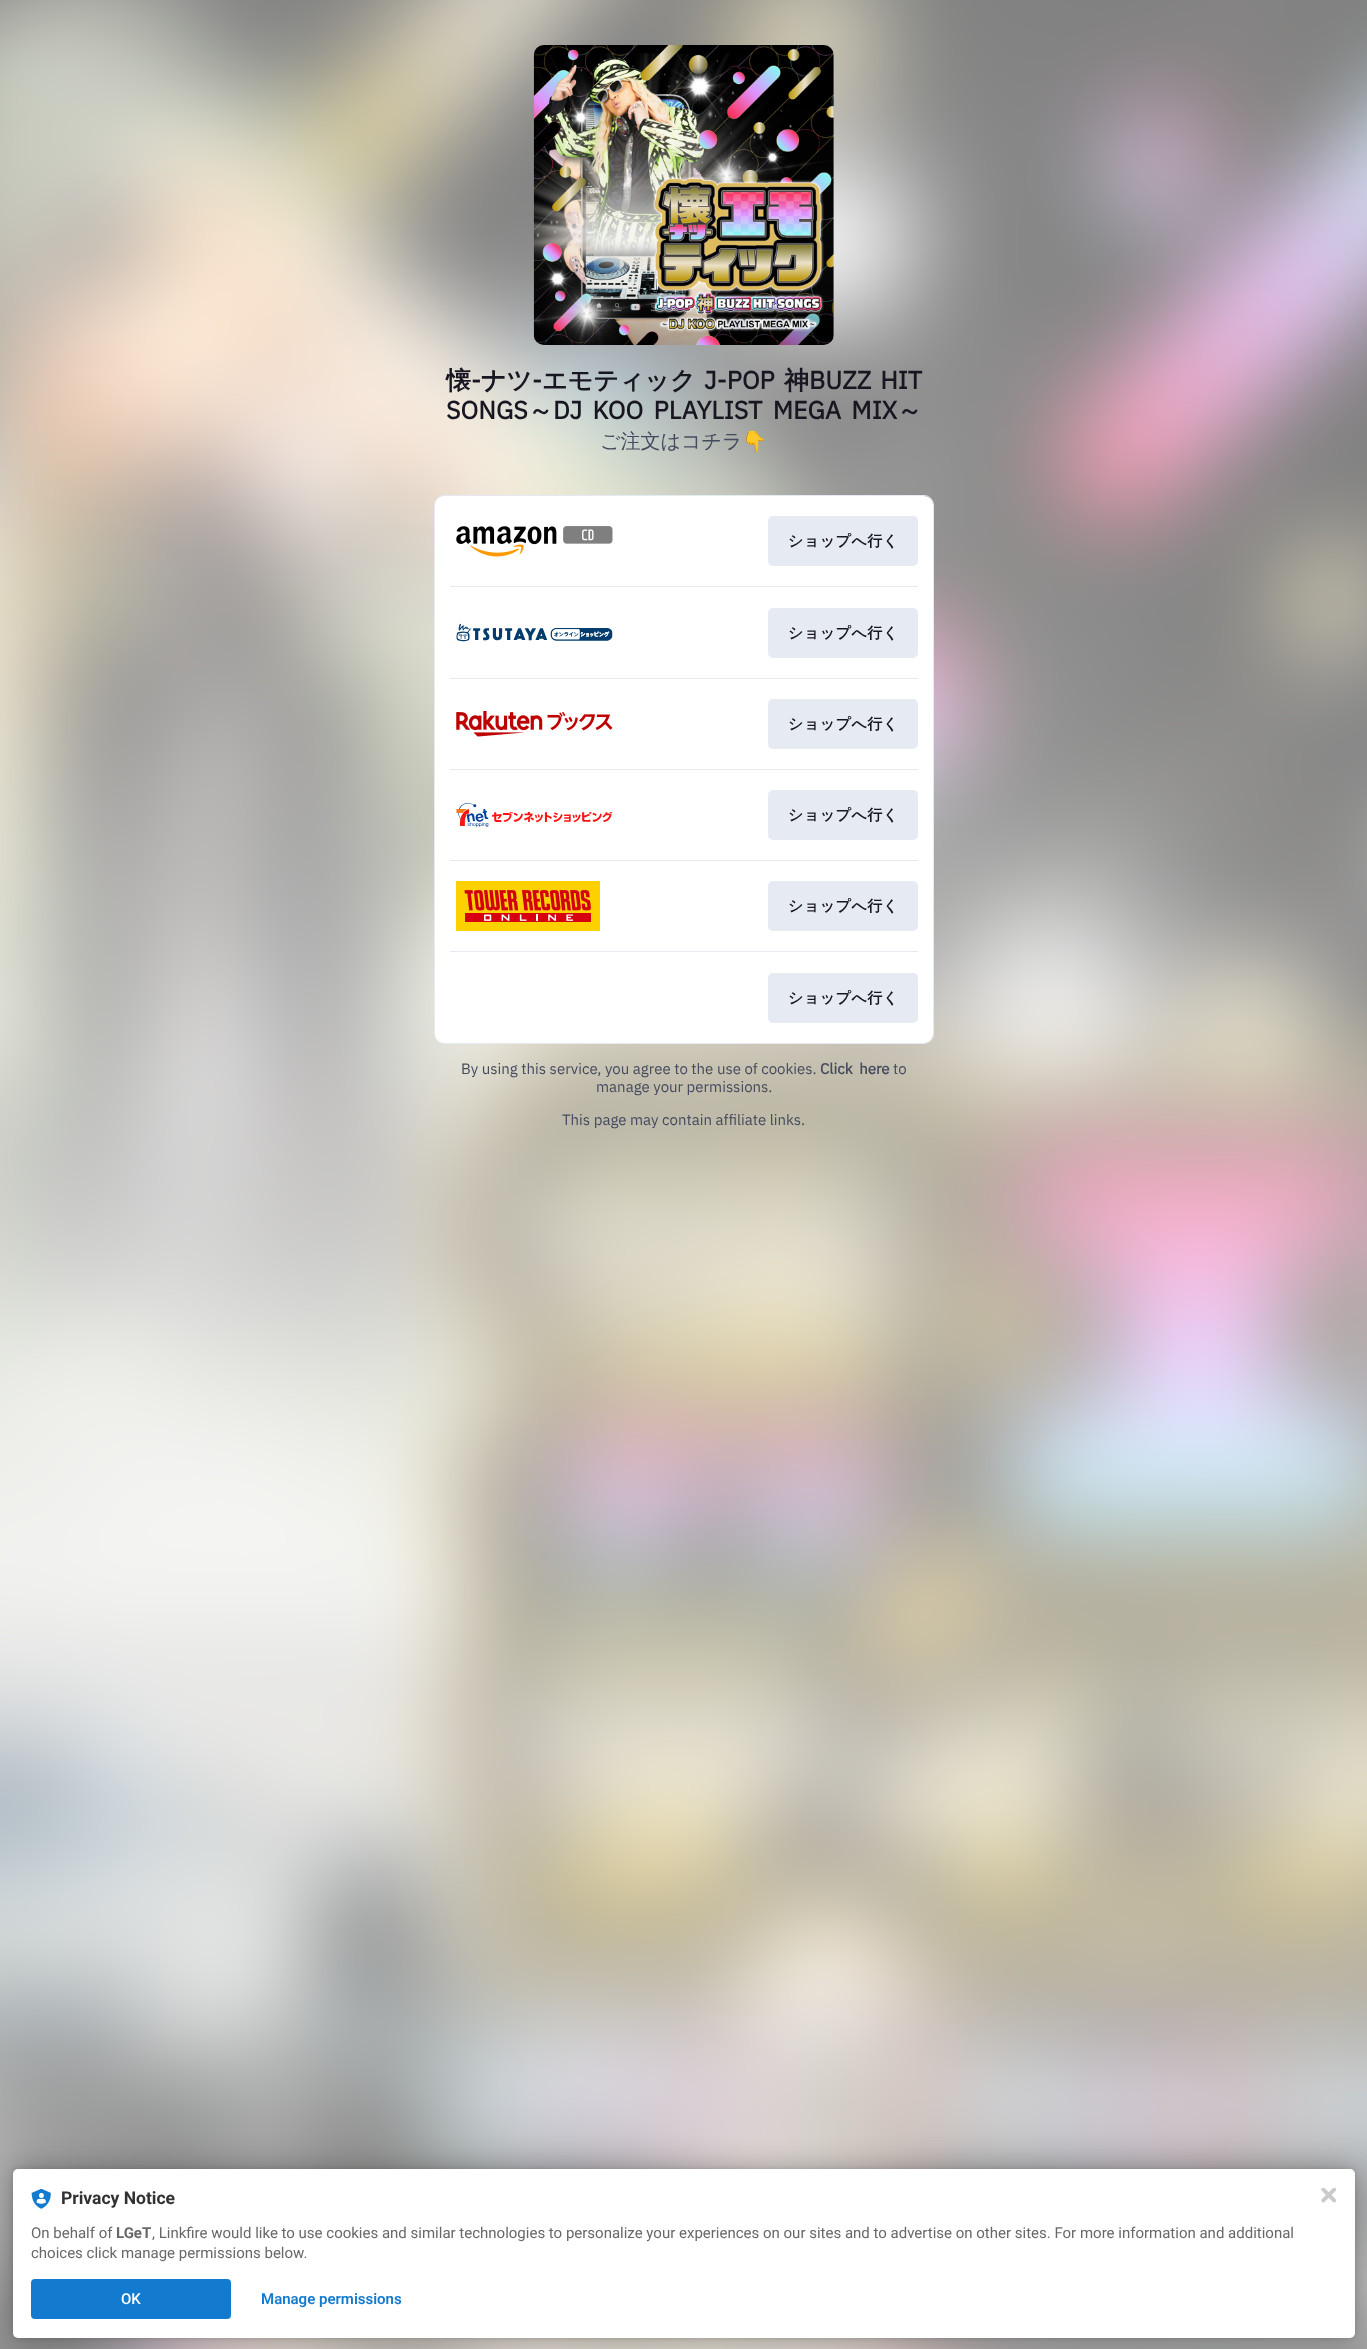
<!DOCTYPE html>
<meta charset="utf-8">
<style>body { margin: 0 } canvas { display: block }</style>
<canvas id="canvas" width="1367" height="2349"></canvas>
<img id="img1" src="images/1.png" hidden>
<img id="img2" src="images/2.png" hidden>
<img id="img3" src="images/3.png" hidden>
<img id="img4" src="images/4.png" hidden>
<img id="img5" src="images/5.png" hidden>
<img id="img6" src="images/6.png" hidden>
<img id="img7" src="images/7.png" hidden>
<img id="img8" src="images/8.png" hidden>
<img id="img9" src="images/9.png" hidden>
<script>
window.onload = function () {
    const canvas = document.getElementById('canvas');
    const context = canvas.getContext('2d');
    context.miterLimit = 4;
    context.fontKerning = 'normal';

    context.fillStyle = 'rgb(255, 255, 255)';
    context.fillRect(0, 0, 1367, 2349);
    context.drawImage(document.getElementById('img1'), 0, 0, 1367, 2349);
    context.drawImage(document.getElementById('img2'), 533, 45, 301, 300);
    context.beginPath();
    context.roundRect(434.5, 495.5, 499, 548, 9.5);
    context.strokeStyle = 'rgb(230, 234, 242)';
    context.stroke();
    context.beginPath();
    context.roundRect(435, 496, 498, 547, 9);
    context.fill();
    context.drawImage(document.getElementById('img3'), 456, 526, 157, 31);
    context.fillStyle = 'rgb(230, 234, 242)';
    context.beginPath();
    context.roundRect(768, 516, 150, 50, 5);
    context.fill();
    context.fillRect(450, 586, 468, 1);
    context.drawImage(document.getElementById('img4'), 456, 623, 157, 19);
    context.beginPath();
    context.roundRect(768, 608, 150, 50, 5);
    context.fill();
    context.fillRect(450, 678, 468, 1);
    context.drawImage(document.getElementById('img5'), 456, 711, 157, 26);
    context.beginPath();
    context.roundRect(768, 699, 150, 50, 5);
    context.fill();
    context.fillRect(450, 769, 468, 1);
    context.drawImage(document.getElementById('img6'), 456, 803, 157, 24);
    context.beginPath();
    context.roundRect(768, 790, 150, 50, 5);
    context.fill();
    context.fillRect(450, 860, 468, 1);
    context.drawImage(document.getElementById('img7'), 456, 881, 144, 50);
    context.beginPath();
    context.roundRect(768, 881, 150, 50, 5);
    context.fill();
    context.fillRect(450, 951, 468, 1);
    context.beginPath();
    context.roundRect(768, 973, 150, 50, 5);
    context.fill();
    context.fillStyle = 'rgba(0, 0, 0, 0.12)';
    context.filter = 'blur(2.5px)';
    context.beginPath();
    context.roundRect(13, 2169, 1342, 169, 5);
    context.fill();
    context.filter = 'none';
    context.fillStyle = 'rgba(0, 0, 0, 0.3)';
    context.filter = 'blur(15px)';
    context.beginPath();
    context.roundRect(13, 2169, 1342, 169, 5);
    context.fill();
    context.filter = 'none';
    context.fillStyle = 'rgb(255, 255, 255)';
    context.beginPath();
    context.roundRect(13, 2169, 1342, 169, 5);
    context.fill();
    context.drawImage(document.getElementById('img8'), 31, 2189, 20, 20);
    context.fillStyle = 'rgb(19, 123, 207)';
    context.beginPath();
    context.roundRect(31, 2279, 200, 40, 4);
    context.fill();
    context.drawImage(document.getElementById('img9'), 1321, 2188, 15, 15);
    context.font = 'bold 25px WenQuanYi Zen Hei';
    context.fillStyle = 'rgb(24, 23, 33)';
    context.fillText('懐', 446, 389);
    context.font = 'bold 25px IBM Plex Sans';
    context.fillText('-', 471, 389);
    context.font = 'bold 25px WenQuanYi Zen Hei';
    context.fillText('ナツ', 481, 389);
    context.font = 'bold 25px IBM Plex Sans';
    context.fillText('-', 532, 389);
    context.font = 'bold 25px WenQuanYi Zen Hei';
    context.fillText('エモティック', 542, 389);
    context.font = 'bold 25px IBM Plex Sans';
    context.fillText('J-POP', 704, 389);
    context.font = 'bold 25px WenQuanYi Zen Hei';
    context.fillText('神', 784, 389);
    context.wordSpacing = '3px';
    context.font = 'bold 25px IBM Plex Sans';
    context.fillText('BUZZ HIT', 809, 389);
    context.wordSpacing = '0px';
    context.fillText('SONGS', 446, 419);
    context.font = 'bold 25px WenQuanYi Zen Hei';
    context.fillText('～', 528, 419);
    context.wordSpacing = '4.5px';
    context.font = 'bold 25px IBM Plex Sans';
    context.fillText('DJ KOO PLAYLIST MEGA MIX', 553, 419);
    context.wordSpacing = '0px';
    context.font = 'bold 25px WenQuanYi Zen Hei';
    context.fillText('～', 897, 419);
    context.font = '500 20px WenQuanYi Zen Hei';
    context.fillStyle = 'rgb(69, 75, 95)';
    context.fillText('ご注文はコチラ', 600, 448);
    context.font = '20px Noto Color Emoji';
    context.fillText('👇', 742, 448);
    context.letterSpacing = '0.5px';
    context.font = 'bold 15px WenQuanYi Zen Hei';
    context.fillStyle = 'rgb(24, 23, 33)';
    context.fillText('ショップへ行く', 788, 546);
    context.fillText('ショップへ行く', 788, 638);
    context.fillText('ショップへ行く', 788, 729);
    context.fillText('ショップへ行く', 788, 820);
    context.fillText('ショップへ行く', 788, 911);
    context.fillText('ショップへ行く', 788, 1003);
    context.letterSpacing = '0px';
    context.font = '15px IBM Plex Sans';
    context.fillStyle = 'rgb(69, 75, 95)';
    context.fillText('By using this service, you agree to the use of cookies.', 461, 1074);
    context.wordSpacing = '3px';
    context.font = 'bold 15px IBM Plex Sans';
    context.fillText('Click here', 820, 1074);
    context.wordSpacing = '0px';
    context.font = '15px IBM Plex Sans';
    context.fillText('to', 893, 1074);
    context.fillText('manage your permissions.', 596, 1092);
    context.fillText('This page may contain affiliate links.', 562, 1125);
    context.font = 'bold 17.5px Roboto';
    context.fillStyle = 'rgb(50, 50, 50)';
    context.fillText('Privacy Notice', 61, 2204);
    context.font = '15px Roboto';
    context.fillStyle = 'rgb(104, 104, 104)';
    context.fillText('On behalf of', 31, 2238);
    context.font = 'bold 15px Roboto';
    context.fillText('LGeT', 116, 2238);
    context.font = '15px Roboto';
    context.fillText(', Linkfire would like to use cookies and similar technologies to personalize your experiences on our sites and to advertise on other sites. For more information and additional', 152, 2238);
    context.fillText('choices click manage permissions below.', 31, 2258);
    context.font = '500 15px Roboto';
    context.fillStyle = 'rgb(255, 255, 255)';
    context.fillText('OK', 121, 2304);
    context.font = '600 15px Roboto';
    context.fillStyle = 'rgb(19, 123, 207)';
    context.fillText('Manage permissions', 261, 2304);
};
</script>
